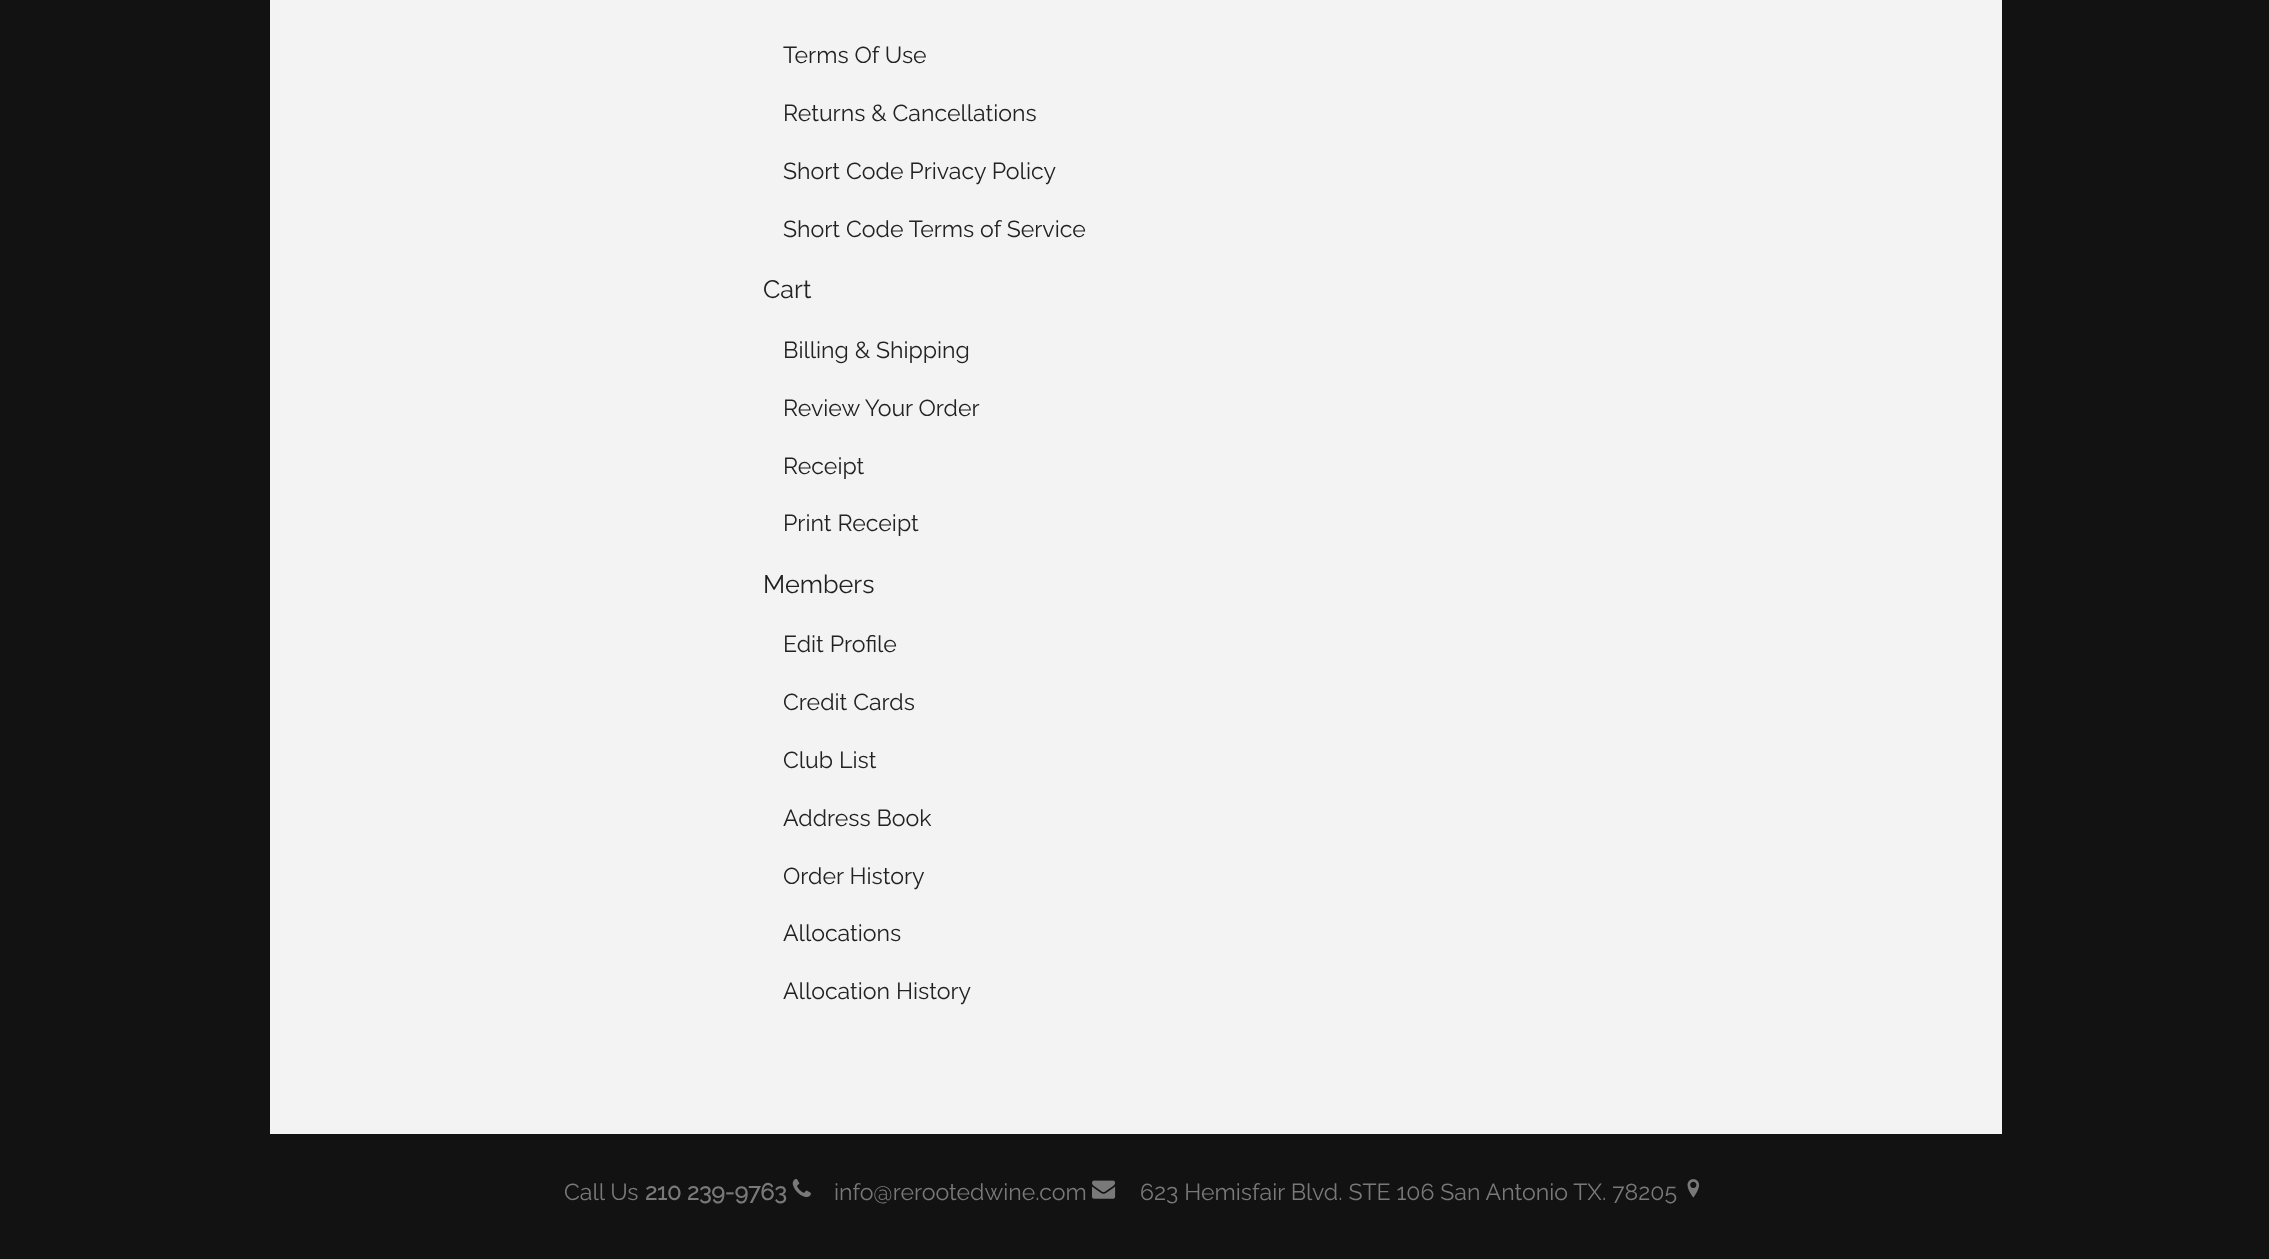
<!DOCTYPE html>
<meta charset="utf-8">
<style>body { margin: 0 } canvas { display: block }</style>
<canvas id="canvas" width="2269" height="1259"></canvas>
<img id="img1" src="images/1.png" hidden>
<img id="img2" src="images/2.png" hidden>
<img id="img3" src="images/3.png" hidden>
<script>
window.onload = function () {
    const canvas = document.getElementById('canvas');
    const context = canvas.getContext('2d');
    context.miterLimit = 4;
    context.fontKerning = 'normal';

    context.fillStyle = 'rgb(18, 18, 18)';
    context.fillRect(0, 0, 2269, 1259);
    context.fillStyle = 'rgb(243, 243, 243)';
    context.fillRect(270, 0, 1732, 1134);
    context.drawImage(document.getElementById('img1'), 792, 1179, 19, 19);
    context.drawImage(document.getElementById('img2'), 1092, 1180, 24, 19);
    context.drawImage(document.getElementById('img3'), 1687, 1179, 13, 19);
    context.font = '100 23.1px Raleway';
    context.fillStyle = 'rgb(34, 34, 34)';
    context.fillText('Terms Of Use', 783, 63);
    context.fillText('Returns & Cancellations', 783, 121);
    context.fillText('Short Code Privacy Policy', 783, 179);
    context.fillText('Short Code Terms of Service', 783, 237);
    context.font = '100 25.25px Raleway';
    context.fillText('Cart', 763, 298);
    context.font = '100 23.1px Raleway';
    context.fillText('Billing & Shipping', 783, 358);
    context.fillText('Review Your Order', 783, 416);
    context.fillText('Receipt', 783, 474);
    context.fillText('Print Receipt', 783, 531);
    context.font = '100 25.25px Raleway';
    context.fillText('Members', 763, 593);
    context.font = '100 23.1px Raleway';
    context.fillText('Edit Profile', 783, 652);
    context.fillText('Credit Cards', 783, 710);
    context.fillText('Club List', 783, 768);
    context.fillText('Address Book', 783, 826);
    context.fillText('Order History', 783, 884);
    context.fillText('Allocations', 783, 941);
    context.fillText('Allocation History', 783, 999);
    context.fillStyle = 'rgb(121, 121, 121)';
    context.fillText('Call Us', 564, 1200);
    context.font = 'bold 23.1px Raleway';
    context.fillText('210 239-9763', 645, 1200);
    context.font = '100 23.1px Raleway';
    context.fillText('info@rerootedwine.com', 834, 1200);
    context.fillText('623 Hemisfair Blvd. STE 106 San Antonio TX. 78205', 1140, 1200);
};
</script>
